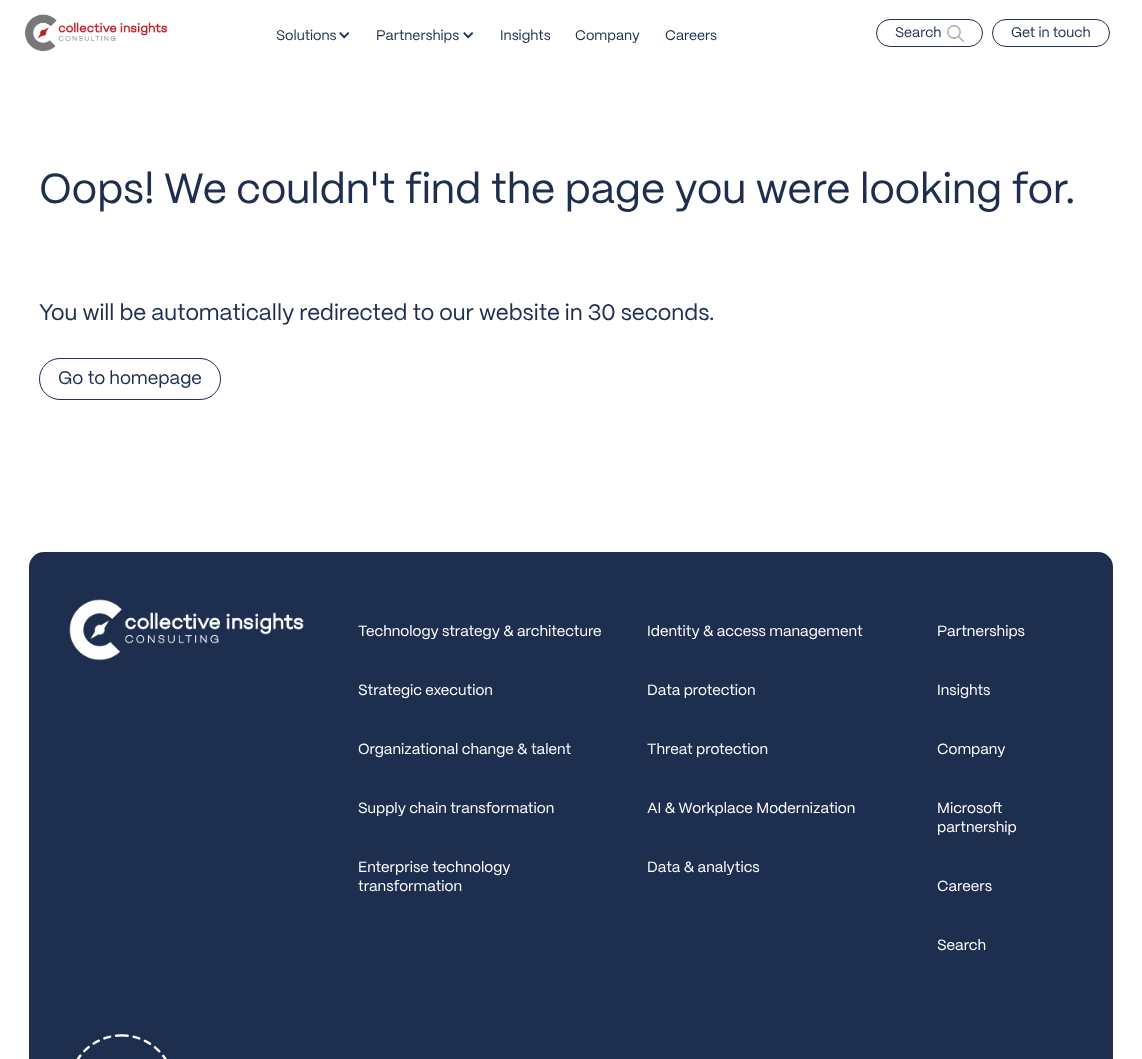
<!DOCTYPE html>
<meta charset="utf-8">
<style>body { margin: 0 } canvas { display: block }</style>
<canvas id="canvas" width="1142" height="1059"></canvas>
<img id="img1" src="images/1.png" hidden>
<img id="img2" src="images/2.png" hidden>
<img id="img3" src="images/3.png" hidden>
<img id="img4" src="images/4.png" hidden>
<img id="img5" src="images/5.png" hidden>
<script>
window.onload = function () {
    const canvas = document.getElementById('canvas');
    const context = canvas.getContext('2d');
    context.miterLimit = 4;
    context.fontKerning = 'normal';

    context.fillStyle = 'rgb(255, 255, 255)';
    context.fillRect(0, 0, 1142, 1059);
    context.drawImage(document.getElementById('img1'), 24, 14, 144, 38);
    context.drawImage(document.getElementById('img2'), 339, 32, 11, 7);
    context.drawImage(document.getElementById('img2'), 463, 32, 11, 7);
    context.beginPath();
    context.roundRect(876.5, 19.5, 106, 27, 13.5);
    context.strokeStyle = 'rgb(29, 46, 78)';
    context.stroke();
    context.drawImage(document.getElementById('img3'), 947, 25, 17, 17);
    context.beginPath();
    context.roundRect(992.5, 19.5, 117, 27, 13.5);
    context.stroke();
    context.beginPath();
    context.roundRect(39.5, 358.5, 181, 41, 20.5);
    context.stroke();
    context.fillStyle = 'rgb(29, 46, 78)';
    context.beginPath();
    context.roundRect(29, 552, 1084, 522, 15);
    context.fill();
    context.drawImage(document.getElementById('img4'), 69, 599, 235, 62);
    context.drawImage(document.getElementById('img5'), 76, 1034, 91, 25);
    context.font = '14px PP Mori';
    context.fillText('Solutions', 276, 40);
    context.fillText('Partnerships', 376, 40);
    context.fillText('Insights', 500, 40);
    context.fillText('Company', 575, 40);
    context.fillText('Careers', 665, 40);
    context.fillText('Search', 895, 37);
    context.fillText('Get in touch', 1011, 37);
    context.font = '42px PP Mori';
    context.fillText('Oops! We couldn\'t find the page you were looking for.', 39, 203);
    context.font = '22.4px PP Mori';
    context.fillText('You will be automatically redirected to our website in 30 seconds.', 39, 320);
    context.font = '18.25px PP Mori';
    context.fillText('Go to homepage', 58, 384);
    context.font = '14.8px PP Mori';
    context.fillStyle = 'rgb(255, 255, 255)';
    context.fillText('Technology strategy & architecture', 358, 636);
    context.fillText('Strategic execution', 358, 695);
    context.fillText('Organizational change & talent', 358, 754);
    context.fillText('Supply chain transformation', 358, 813);
    context.fillText('Enterprise technology', 358, 872);
    context.fillText('transformation', 358, 891);
    context.fillText('Identity & access management', 647, 636);
    context.fillText('Data protection', 647, 695);
    context.fillText('Threat protection', 647, 754);
    context.fillText('AI & Workplace Modernization', 647, 813);
    context.fillText('Data & analytics', 647, 872);
    context.fillText('Partnerships', 937, 636);
    context.fillText('Insights', 937, 695);
    context.fillText('Company', 937, 754);
    context.fillText('Microsoft', 937, 813);
    context.fillText('partnership', 937, 832);
    context.fillText('Careers', 937, 891);
    context.fillText('Search', 937, 950);
};
</script>
